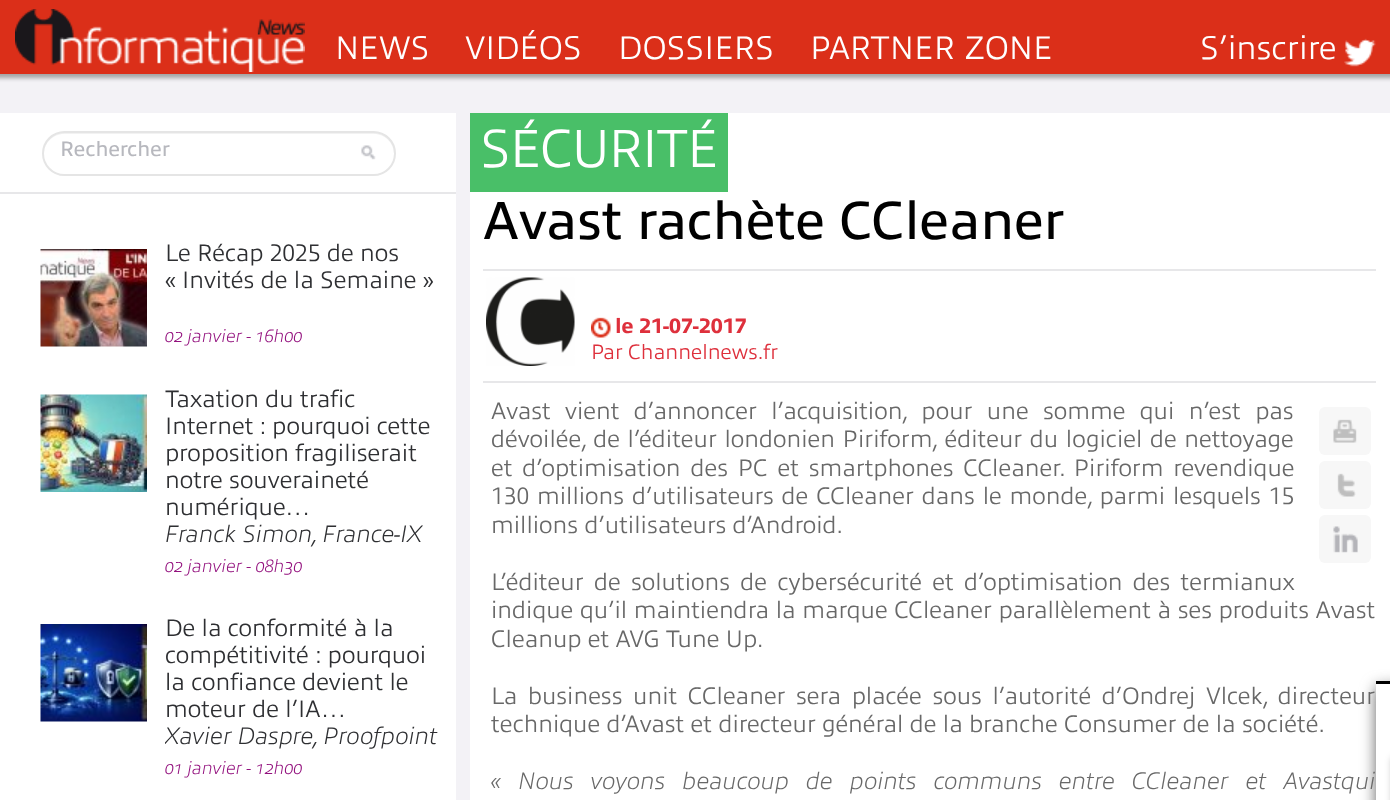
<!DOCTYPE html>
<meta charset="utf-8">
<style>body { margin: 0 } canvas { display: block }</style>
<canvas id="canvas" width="1390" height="800"></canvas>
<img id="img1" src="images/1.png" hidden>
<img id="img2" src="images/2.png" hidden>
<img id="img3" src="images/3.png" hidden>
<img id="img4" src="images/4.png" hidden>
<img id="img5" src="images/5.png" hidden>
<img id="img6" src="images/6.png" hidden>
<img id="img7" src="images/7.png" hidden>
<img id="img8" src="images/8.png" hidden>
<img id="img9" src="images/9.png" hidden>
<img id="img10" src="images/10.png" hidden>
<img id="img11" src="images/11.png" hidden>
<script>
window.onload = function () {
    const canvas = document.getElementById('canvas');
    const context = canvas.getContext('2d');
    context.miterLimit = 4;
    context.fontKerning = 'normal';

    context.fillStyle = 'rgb(243, 242, 246)';
    context.fillRect(0, 0, 1390, 800);
    context.fillStyle = 'rgb(163, 163, 164)';
    context.filter = 'blur(2px)';
    context.beginPath();
    context.rect(-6, -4, 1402, 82);
    context.fill();
    context.filter = 'none';
    context.fillStyle = 'rgb(219, 47, 25)';
    context.fillRect(0, 0, 1390, 74);
    context.drawImage(document.getElementById('img1'), 15, 9, 290, 63);
    context.drawImage(document.getElementById('img2'), 1344, 38, 32, 29);
    context.fillStyle = 'rgb(255, 255, 255)';
    context.fillRect(0, 113, 456, 687);
    context.fillStyle = 'rgb(231, 231, 233)';
    context.fillRect(0, 192, 456, 2);
    context.fillStyle = 'rgb(242, 242, 242)';
    context.beginPath();
    context.moveTo(64, 134);
    context.lineTo(374, 134);
    context.bezierCurveTo(385, 134, 394, 143, 394, 154);
    context.bezierCurveTo(394, 158, 393, 162, 391, 165);
    context.bezierCurveTo(394, 161, 395, 157, 395, 153);
    context.bezierCurveTo(395, 141, 386, 132, 374, 132);
    context.lineTo(65, 132);
    context.bezierCurveTo(53, 132, 44, 141, 44, 153);
    context.lineTo(44, 154);
    context.bezierCurveTo(44, 143, 53, 134, 64, 134);
    context.closePath();
    context.fill();
    context.beginPath();
    context.roundRect(43, 132, 352, 43, 21.5);
    context.strokeStyle = 'rgb(229, 229, 229)';
    context.lineWidth = 2;
    context.stroke();
    context.drawImage(document.getElementById('img3'), 361, 145, 15, 15);
    context.drawImage(document.getElementById('img4'), 40, 249, 107, 98);
    context.drawImage(document.getElementById('img5'), 40, 394, 107, 98);
    context.drawImage(document.getElementById('img6'), 40, 624, 107, 98);
    context.fillStyle = 'rgb(255, 255, 255)';
    context.fillRect(470, 113, 920, 687);
    context.fillStyle = 'rgb(73, 191, 104)';
    context.fillRect(470, 113, 258, 79);
    context.fillStyle = 'rgb(231, 231, 233)';
    context.fillRect(483, 269, 893, 2);
    context.fillRect(483, 381, 893, 2);
    context.drawImage(document.getElementById('img7'), 486, 277, 89, 89);
    context.drawImage(document.getElementById('img8'), 591, 317, 20, 21);
    context.fillStyle = 'rgb(247, 247, 247)';
    context.beginPath();
    context.roundRect(1319, 407, 52, 48, 6);
    context.fill();
    context.drawImage(document.getElementById('img9'), 1333, 419, 24, 24);
    context.beginPath();
    context.roundRect(1319, 461, 52, 48, 6);
    context.fill();
    context.drawImage(document.getElementById('img10'), 1337, 473, 19, 24);
    context.beginPath();
    context.roundRect(1319, 515, 52, 48, 6);
    context.fill();
    context.drawImage(document.getElementById('img11'), 1333, 526, 25, 27);
    context.save();
    context.beginPath();
    context.moveTo(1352, 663);
    context.lineTo(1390, 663);
    context.lineTo(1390, 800);
    context.lineTo(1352, 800);
    context.closePath();
    context.moveTo(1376, 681);
    context.lineTo(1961, 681);
    context.lineTo(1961, 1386);
    context.lineTo(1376, 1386);
    context.closePath();
    context.clip('evenodd');
    context.fillStyle = 'rgb(102, 102, 102)';
    context.filter = 'blur(7.5px)';
    context.beginPath();
    context.rect(1376, 687, 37, 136);
    context.fill();
    context.filter = 'none';
    context.restore();
    context.fillStyle = 'rgb(0, 0, 0)';
    context.fillRect(1376, 681, 14, 3);
    context.fillStyle = 'rgba(0, 0, 0, 0.2)';
    context.filter = 'blur(3px)';
    context.beginPath();
    context.roundRect(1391, 756, 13, 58, 5);
    context.fill();
    context.filter = 'none';
    context.font = '300 33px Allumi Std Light';
    context.fillStyle = 'rgb(255, 255, 255)';
    context.fillText('NEWS', 335, 59);
    context.fillText('VIDÉOS', 465, 59);
    context.fillText('DOSSIERS', 618, 59);
    context.fillText('PARTNER ZONE', 810, 59);
    context.fillText('S’inscrire', 1200, 59);
    context.font = '21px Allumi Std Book';
    context.fillStyle = 'rgb(183, 184, 190)';
    context.fillText('Rechercher', 60, 156);
    context.font = '300 24px Allumi Std Light';
    context.fillStyle = 'rgb(46, 47, 50)';
    context.fillText('Le Récap 2025 de nos', 165, 261);
    context.fillText('« Invités de la Semaine »', 165, 288);
    context.font = 'italic 200 18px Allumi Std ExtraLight';
    context.fillStyle = 'rgb(147, 17, 126)';
    context.fillText('02 janvier - 16h00', 165, 342);
    context.font = '300 24px Allumi Std Light';
    context.fillStyle = 'rgb(46, 47, 50)';
    context.fillText('Taxation du trafic', 165, 407);
    context.fillText('Internet : pourquoi cette', 165, 434);
    context.fillText('proposition fragiliserait', 165, 461);
    context.fillText('notre souveraineté', 165, 488);
    context.fillText('numérique…', 165, 515);
    context.font = 'italic 200 24px Allumi Std ExtraLight';
    context.fillText('Franck Simon, France-IX', 165, 542);
    context.font = 'italic 200 18px Allumi Std ExtraLight';
    context.fillStyle = 'rgb(147, 17, 126)';
    context.fillText('02 janvier - 08h30', 165, 572);
    context.font = '300 24px Allumi Std Light';
    context.fillStyle = 'rgb(46, 47, 50)';
    context.fillText('De la conformité à la', 165, 636);
    context.fillText('compétitivité : pourquoi', 165, 663);
    context.fillText('la confiance devient le', 165, 690);
    context.fillText('moteur de l’IA…', 165, 717);
    context.save();
    context.beginPath();
    context.rect(165, 615, 276, 167);
    context.clip();
    context.font = 'italic 200 24px Allumi Std ExtraLight';
    context.fillText('Xavier Daspre, Proofpoint', 165, 744);
    context.restore();
    context.font = 'italic 200 18px Allumi Std ExtraLight';
    context.fillStyle = 'rgb(147, 17, 126)';
    context.fillText('01 janvier - 12h00', 165, 774);
    context.letterSpacing = '-1.5px';
    context.font = '300 54px Allumi Std Light';
    context.fillStyle = 'rgb(255, 255, 255)';
    context.fillText('SÉCURITÉ', 480, 167);
    context.letterSpacing = '0px';
    context.font = '54px Allumi Std Book';
    context.fillStyle = 'rgb(0, 0, 0)';
    context.fillText('Avast rachète CCleaner', 483, 239);
    context.font = '800 21px Allumi Std Book';
    context.fillStyle = 'rgb(222, 48, 60)';
    context.fillText('le', 615, 333);
    context.fillText('21-07-2017', 639, 333);
    context.font = '300 21px Allumi Std Light';
    context.fillText('Par', 591, 359);
    context.fillText('Channelnews.fr', 628, 359);
    context.wordSpacing = '8px';
    context.font = '300 24px Allumi Std Light';
    context.fillStyle = 'rgb(104, 104, 104)';
    context.fillText('Avast vient d’annoncer l’acquisition, pour une somme qui n’est pas', 491, 419);
    context.wordSpacing = '1.25px';
    context.fillText('dévoilée, de l’éditeur londonien Piriform, éditeur du logiciel de nettoyage', 491, 447);
    context.wordSpacing = '3.5px';
    context.fillText('et d’optimisation des PC et smartphones CCleaner. Piriform revendique', 491, 476);
    context.wordSpacing = '1.5px';
    context.fillText('130 millions d’utilisateurs de CCleaner dans le monde, parmi lesquels 15', 491, 504);
    context.wordSpacing = '0px';
    context.fillText('millions d’utilisateurs d’Android.', 491, 533);
    context.wordSpacing = '4px';
    context.fillText('L’éditeur de solutions de cybersécurité et d’optimisation des termianux', 491, 590);
    context.wordSpacing = '0.25px';
    context.fillText('indique qu’il maintiendra la marque CCleaner parallèlement à ses produits Avast', 491, 618);
    context.wordSpacing = '0px';
    context.fillText('Cleanup et AVG Tune Up.', 491, 647);
    context.wordSpacing = '4.25px';
    context.fillText('La business unit CCleaner sera placée sous l’autorité d’Ondrej Vlcek, directeur', 491, 704);
    context.wordSpacing = '0px';
    context.fillText('technique d’Avast et directeur général de la branche Consumer de la société.', 491, 732);
    context.wordSpacing = '11px';
    context.font = 'italic 200 24px Allumi Std ExtraLight';
    context.fillText('« Nous voyons beaucoup de points communs entre CCleaner et Avastqui', 491, 789);
};
</script>
